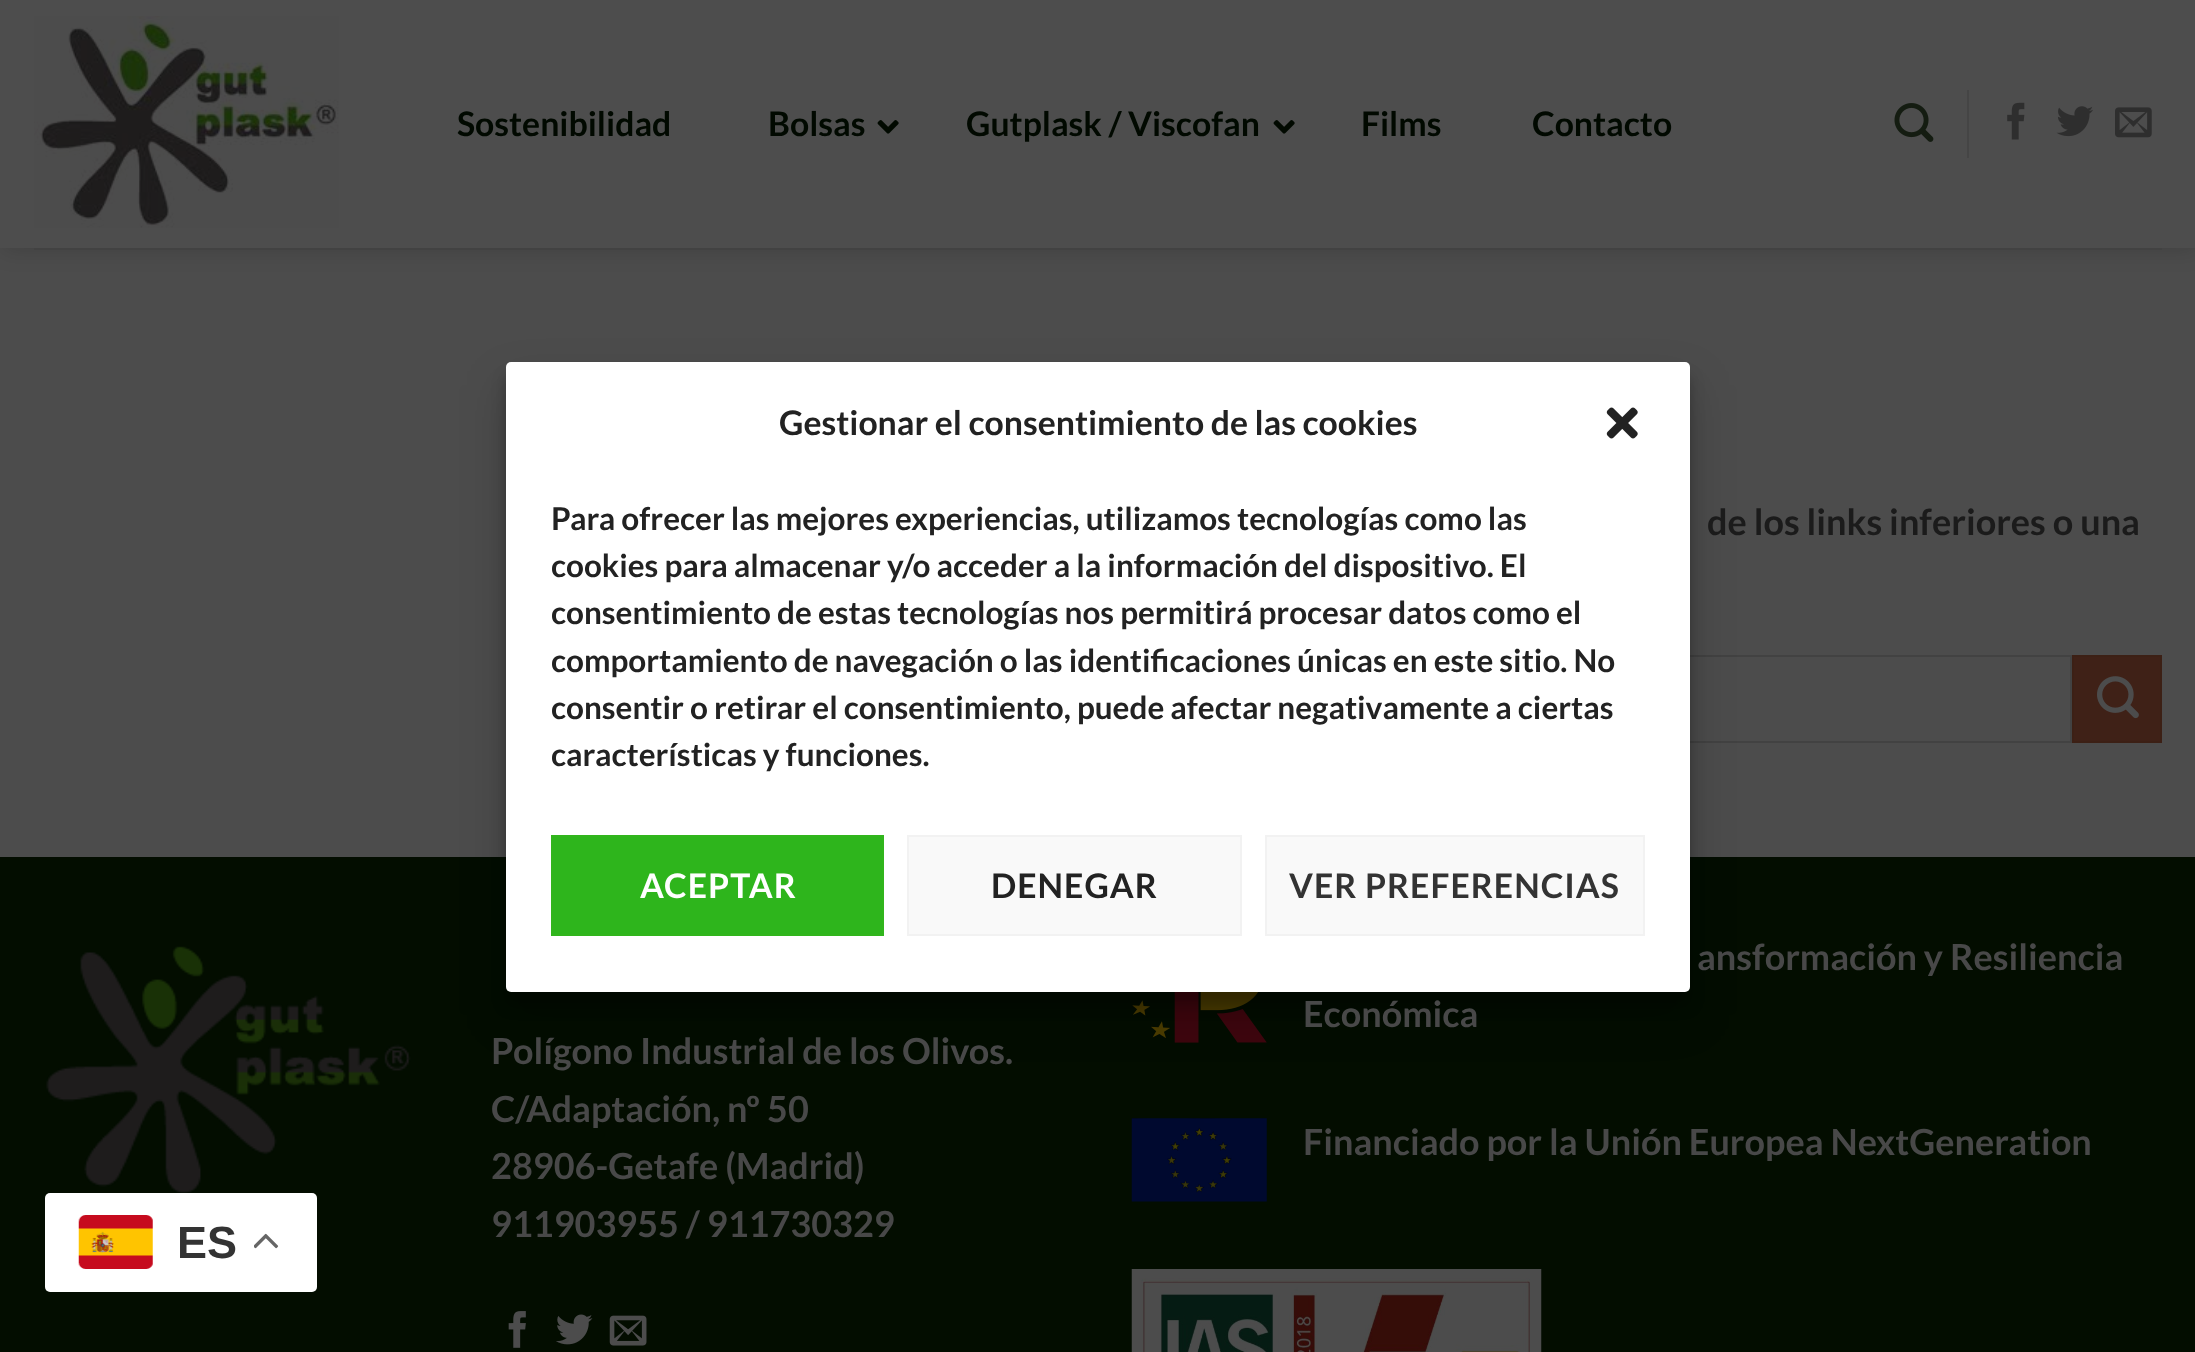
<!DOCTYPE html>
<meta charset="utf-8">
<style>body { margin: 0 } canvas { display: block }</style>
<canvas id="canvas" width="2195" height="1352"></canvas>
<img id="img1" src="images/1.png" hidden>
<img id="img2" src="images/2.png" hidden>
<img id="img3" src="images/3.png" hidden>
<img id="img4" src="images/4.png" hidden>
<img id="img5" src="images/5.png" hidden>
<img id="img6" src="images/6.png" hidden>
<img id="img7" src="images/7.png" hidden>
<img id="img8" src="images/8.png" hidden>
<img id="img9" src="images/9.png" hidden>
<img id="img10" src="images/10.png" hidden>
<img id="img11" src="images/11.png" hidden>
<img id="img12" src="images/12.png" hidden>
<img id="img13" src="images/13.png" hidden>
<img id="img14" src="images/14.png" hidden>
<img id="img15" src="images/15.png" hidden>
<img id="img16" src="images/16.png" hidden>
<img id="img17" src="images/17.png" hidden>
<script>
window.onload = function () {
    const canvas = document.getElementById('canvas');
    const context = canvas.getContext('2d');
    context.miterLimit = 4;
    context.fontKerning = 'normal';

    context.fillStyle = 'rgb(76, 76, 76)';
    context.fillRect(0, 0, 2195, 1352);
    context.fillStyle = 'rgba(0, 0, 0, 0.15)';
    context.filter = 'blur(11px)';
    context.beginPath();
    context.rect(2, 2, 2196, 248);
    context.fill();
    context.filter = 'none';
    context.fillStyle = 'rgb(77, 77, 77)';
    context.fillRect(0, 0, 2195, 248);
    context.drawImage(document.getElementById('img1'), 34, 16, 305, 212);
    context.drawImage(document.getElementById('img2'), 877, 120, 22, 14);
    context.drawImage(document.getElementById('img2'), 1273, 120, 22, 14);
    context.drawImage(document.getElementById('img3'), 1894, 103, 40, 39);
    context.fillStyle = 'rgb(69, 69, 69)';
    context.fillRect(1967, 90, 2, 68);
    context.drawImage(document.getElementById('img4'), 2007, 102, 18, 38);
    context.drawImage(document.getElementById('img5'), 2056, 106, 37, 31);
    context.drawImage(document.getElementById('img6'), 2115, 107, 37, 31);
    context.fillStyle = 'rgb(66, 66, 66)';
    context.fillRect(34, 248, 2128, 2);
    context.strokeStyle = 'rgb(66, 66, 66)';
    context.lineWidth = 2;
    context.strokeRect(584, 656, 1487, 86);
    context.fillStyle = 'rgb(63, 33, 23)';
    context.beginPath();
    context.rect(2073, 656, 88, 86);
    context.fill();
    context.strokeStyle = 'rgb(60, 32, 21)';
    context.stroke();
    context.drawImage(document.getElementById('img7'), 2097, 676, 42, 43);
    context.fillStyle = 'rgb(3, 13, 0)';
    context.fillRect(0, 857, 2195, 495);
    context.drawImage(document.getElementById('img8'), 46, 946, 365, 247);
    context.drawImage(document.getElementById('img9'), 508, 1311, 18, 37);
    context.drawImage(document.getElementById('img10'), 556, 1314, 37, 31);
    context.drawImage(document.getElementById('img11'), 609, 1315, 38, 31);
    context.drawImage(document.getElementById('img12'), 1132, 992, 135, 51);
    context.drawImage(document.getElementById('img13'), 1131, 1118, 136, 84);
    context.drawImage(document.getElementById('img14'), 1131, 1269, 411, 83);
    context.fillStyle = 'rgba(0, 0, 0, 0.23)';
    context.filter = 'blur(7px)';
    context.beginPath();
    context.roundRect(506, 376, 1184, 630, 5);
    context.fill();
    context.filter = 'none';
    context.fillStyle = 'rgba(0, 0, 0, 0.19)';
    context.filter = 'blur(22.5px)';
    context.beginPath();
    context.roundRect(506, 385, 1184, 630, 5);
    context.fill();
    context.filter = 'none';
    context.fillStyle = 'rgb(255, 255, 255)';
    context.beginPath();
    context.roundRect(506, 362, 1184, 630, 5);
    context.fill();
    context.drawImage(document.getElementById('img15'), 1606, 407, 32, 32);
    context.fillStyle = 'rgb(46, 181, 28)';
    context.beginPath();
    context.rect(552, 836, 331, 99);
    context.fill();
    context.strokeStyle = 'rgb(49, 181, 28)';
    context.stroke();
    context.fillStyle = 'rgb(249, 249, 249)';
    context.beginPath();
    context.rect(908, 836, 333, 99);
    context.fill();
    context.strokeStyle = 'rgb(242, 242, 242)';
    context.stroke();
    context.beginPath();
    context.rect(1266, 836, 378, 99);
    context.fill();
    context.stroke();
    context.fillStyle = 'rgb(255, 255, 255)';
    context.beginPath();
    context.roundRect(45, 1193, 272, 99, 5);
    context.fill();
    context.drawImage(document.getElementById('img16'), 78, 1215, 75, 54);
    context.drawImage(document.getElementById('img17'), 254, 1233, 25, 16);
    context.font = 'bold 33.75px Lato';
    context.fillStyle = 'rgb(1, 9, 0)';
    context.fillText('Sostenibilidad', 457, 136);
    context.fillText('Bolsas', 768, 136);
    context.fillText('Gutplask / Viscofan', 966, 136);
    context.fillText('Films', 1361, 136);
    context.fillText('Contacto', 1532, 136);
    context.font = 'bold 36px Lato';
    context.fillStyle = 'rgb(27, 27, 27)';
    context.fillText('de los links inferiores o una', 1707, 535);
    context.fillStyle = 'rgb(72, 72, 72)';
    context.fillText('Polígono Industrial de los Olivos.', 491, 1064);
    context.fillText('C/Adaptación, nº 50', 491, 1122);
    context.fillText('28906-Getafe (Madrid)', 491, 1179);
    context.fillText('911903955 / 911730329', 491, 1237);
    context.fillText('ansformación y Resiliencia', 1697, 970);
    context.fillText('Económica', 1303, 1027);
    context.fillText('Financiado por la Unión Europea NextGeneration', 1303, 1155);
    context.font = 'bold 33.75px Lato';
    context.fillStyle = 'rgb(34, 34, 34)';
    context.fillText('Gestionar el consentimiento de las cookies', 779, 435);
    context.font = 'bold 31.5px Lato';
    context.fillText('Para ofrecer las mejores experiencias, utilizamos tecnologías como las', 551, 530);
    context.fillText('cookies para almacenar y/o acceder a la información del dispositivo. El', 551, 577);
    context.fillText('consentimiento de estas tecnologías nos permitirá procesar datos como el', 551, 624);
    context.fillText('comportamiento de navegación o las identificaciones únicas en este sitio. No', 551, 672);
    context.fillText('consentir o retirar el consentimiento, puede afectar negativamente a ciertas', 551, 719);
    context.fillText('características y funciones.', 551, 766);
    context.letterSpacing = '1px';
    context.font = 'bold 33.75px Lato';
    context.fillStyle = 'rgb(255, 255, 255)';
    context.fillText('ACEPTAR', 640, 898);
    context.fillStyle = 'rgb(34, 34, 34)';
    context.fillText('DENEGAR', 991, 898);
    context.fillStyle = 'rgb(51, 51, 51)';
    context.fillText('VER PREFERENCIAS', 1289, 898);
    context.letterSpacing = '0px';
    context.font = 'bold 45px Liberation Sans';
    context.fillText('ES', 177, 1258);
};
</script>
